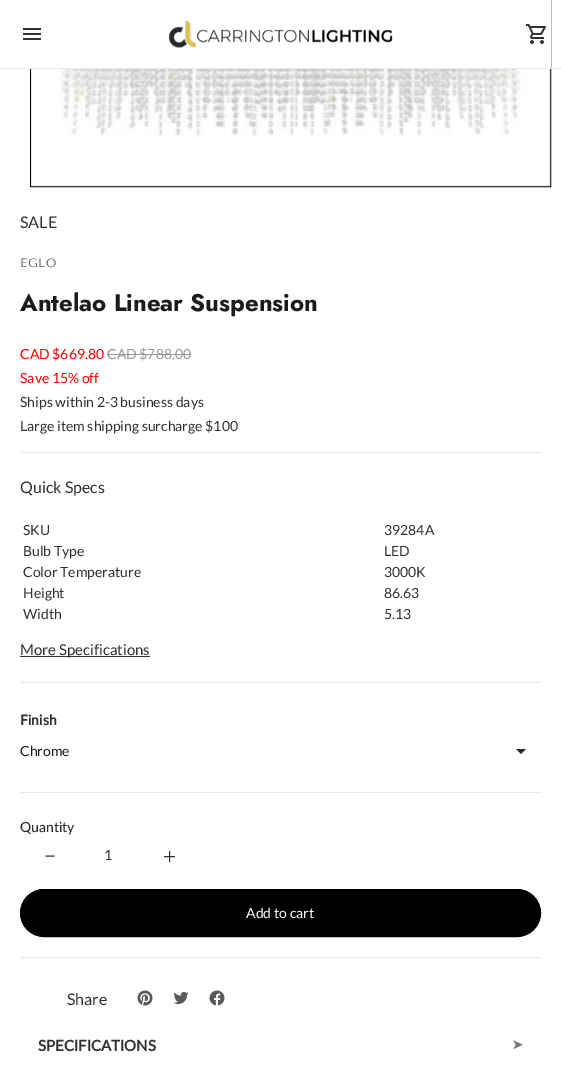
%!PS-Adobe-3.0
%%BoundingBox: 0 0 561 1066
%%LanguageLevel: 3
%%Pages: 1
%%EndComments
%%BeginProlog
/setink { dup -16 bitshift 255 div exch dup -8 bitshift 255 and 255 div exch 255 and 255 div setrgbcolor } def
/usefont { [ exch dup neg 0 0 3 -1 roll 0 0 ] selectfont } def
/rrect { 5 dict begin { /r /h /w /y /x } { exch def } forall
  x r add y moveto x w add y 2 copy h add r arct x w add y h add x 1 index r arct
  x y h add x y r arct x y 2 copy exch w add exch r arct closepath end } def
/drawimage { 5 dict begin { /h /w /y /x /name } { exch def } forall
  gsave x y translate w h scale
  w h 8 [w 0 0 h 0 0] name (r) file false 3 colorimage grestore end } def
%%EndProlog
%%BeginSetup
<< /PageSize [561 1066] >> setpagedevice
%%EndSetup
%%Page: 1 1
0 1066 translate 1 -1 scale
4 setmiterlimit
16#FFFFFF setink
0 0 561 1066 rectfill
16#000000 setink
30.5 -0.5 520 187 rectstroke
16#E9E9E9 setink
31.5 -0.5 518 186 rectstroke
16#FFFFFF setink
30 0 521 68 rectfill
16#EAEAEA setink
0 68 561 1 rectfill
(img1.raw) 23 28 18 12 drawimage
(img2.raw) 168 20 225 28 drawimage
(img3.raw) 526 24 20 20 drawimage
(img4.raw) 32 69 517 116 drawimage
/Lato-Regular 16 usefont
16#313131 setink
20 228 moveto (SALE) show
/TenorSans-Regular 12 usefont
16#5F5F5F setink
20 267 moveto 0.5 0 (EGLO) ashow
/Jost-Bold 24 usefont
16#1B1B1B setink
20 311 moveto (Antelao Linear Suspension) show
/Lato-Regular 14 usefont
16#FF0000 setink
20 359 moveto (CAD $669.80) show
16#989898 setink
107 359 moveto (CAD $788.00) show
107 354 84 1 rectfill
16#FF0000 setink
20 383 moveto (Save 15% off) show
16#313131 setink
20 407 moveto (Ships within 2-3 business days) show
20 431 moveto (Large item shipping surcharge $100) show
16#EAEAEA setink
20 452 521 1 rectfill
20 682 521 1 rectfill
/Lato-Regular 16 usefont
16#313131 setink
20 493 moveto (Quick Specs) show
/Lato-Regular 14 usefont
[
    [(SKU) 23 535]
    [(39284A) 384 535]
    [(Bulb Type) 23 556]
    [(LED) 384 556]
    [(Color Temperature) 23 577]
    [(3000K) 384 577]
    [(Height) 23 598]
    [(86.63) 384 598]
    [(Width) 23 619]
    [(5.13) 384 619]
] { aload pop moveto show } forall
20 656 130 1 rectfill
/Lato-Regular 15 usefont
20 655 moveto (More Specifications) show
/Lato-Bold 14 usefont
20 725 moveto (Finish) show
/Lato-Regular 14 usefont
16#1B1B1B setink
20 756 moveto (Chrome) show
16#292929 setink
516 749 moveto 521 754 lineto 526 749 lineto closepath fill
16#EAEAEA setink
20 792 521 1 rectfill
/Lato-Medium 14 usefont
16#313131 setink
20 832 moveto (Quantity) show
2 setlinecap
46 856 moveto 54 856 lineto stroke
/Lato-Regular 14 usefont
104 860 moveto (1) show
0 setlinecap
169.5 851 moveto 169.5 862 lineto 164 856.5 moveto 175 856.5 lineto stroke
16#000000 setink
20.5 889.5 520 47 23.5 rrect gsave fill grestore
stroke
16#FFFFFF setink
246 918 moveto (Add to cart) show
16#EAEAEA setink
20 957 521 1 rectfill
/Lato-Regular 16 usefont
16#313131 setink
67 1005 moveto (Share) show
(img5.raw) 137 990 16 16 drawimage
(img6.raw) 173 991 16 14 drawimage
(img7.raw) 209 990 16 16 drawimage
/Lato-Bold 15 usefont
38 1051 moveto (SPECIFICATIONS) show
/DejaVuSans-Bold 13 usefont
16#777777 setink
512 1049 moveto (➤) show
showpage
%%EOF
